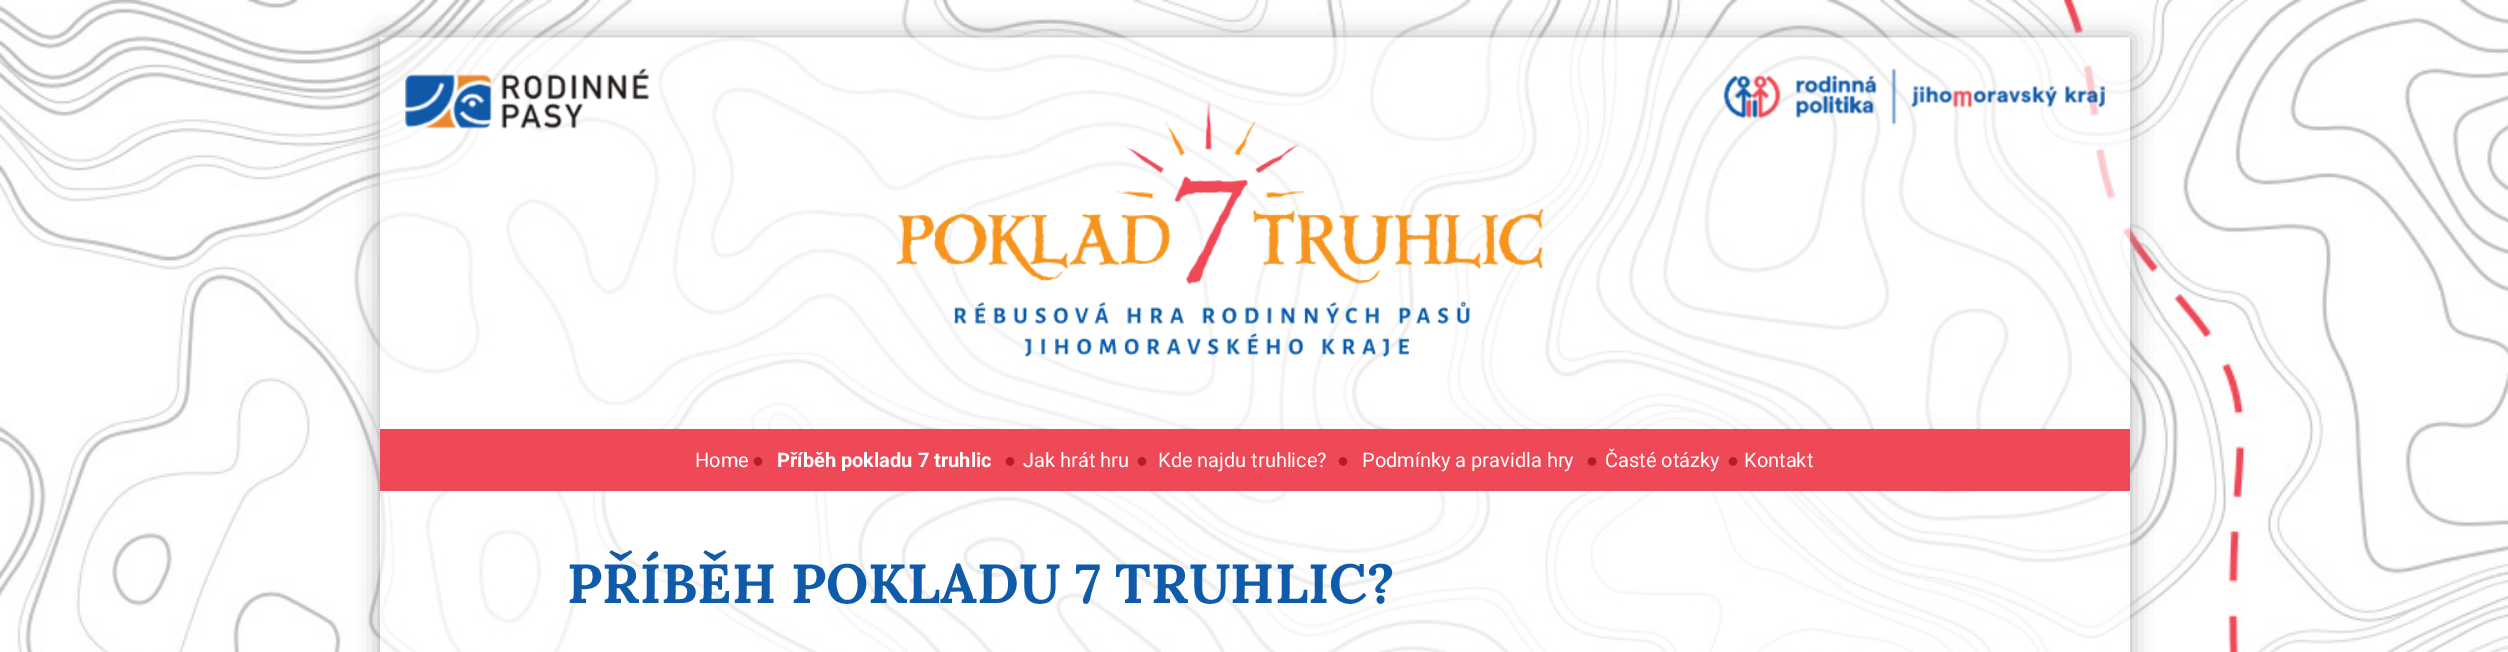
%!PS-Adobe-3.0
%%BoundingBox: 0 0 2508 652
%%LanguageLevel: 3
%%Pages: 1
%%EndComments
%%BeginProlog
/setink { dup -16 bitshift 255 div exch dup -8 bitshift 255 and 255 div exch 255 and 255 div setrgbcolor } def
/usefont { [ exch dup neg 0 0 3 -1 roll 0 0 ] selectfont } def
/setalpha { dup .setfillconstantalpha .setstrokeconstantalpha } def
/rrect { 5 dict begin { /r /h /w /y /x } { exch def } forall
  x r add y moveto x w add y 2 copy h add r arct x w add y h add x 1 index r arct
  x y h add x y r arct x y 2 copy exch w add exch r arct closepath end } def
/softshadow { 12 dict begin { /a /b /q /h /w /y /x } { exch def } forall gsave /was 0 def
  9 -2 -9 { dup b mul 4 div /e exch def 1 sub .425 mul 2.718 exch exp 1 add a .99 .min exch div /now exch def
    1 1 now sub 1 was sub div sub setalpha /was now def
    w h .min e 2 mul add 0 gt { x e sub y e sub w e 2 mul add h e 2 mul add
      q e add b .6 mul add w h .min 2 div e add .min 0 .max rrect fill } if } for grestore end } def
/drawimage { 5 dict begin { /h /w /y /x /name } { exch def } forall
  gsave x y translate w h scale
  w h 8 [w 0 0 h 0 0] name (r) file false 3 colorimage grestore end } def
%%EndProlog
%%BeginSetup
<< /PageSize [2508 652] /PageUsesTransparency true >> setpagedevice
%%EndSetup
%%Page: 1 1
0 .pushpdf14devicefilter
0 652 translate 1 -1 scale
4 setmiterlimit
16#FFFFFF setink
0 0 2508 652 rectfill
(img1.raw) 0 0 2508 652 drawimage
gsave
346 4 moveto 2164 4 lineto 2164 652 lineto 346 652 lineto closepath 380 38 moveto 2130 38 lineto 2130 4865 lineto 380 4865 lineto closepath eoclip newpath
16#AAAAAA setink
380 38 1750 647 0 11 1 softshadow
grestore
(img2.raw) 380 37 1750 392 drawimage
(img3.raw) 405 68 244 61 drawimage
(img4.raw) 896 101 648 257 drawimage
(img5.raw) 1723 68 382 57 drawimage
16#EF4857 setink
380 429 1750 62 rectfill
/Roboto-Regular 20 usefont
16#FFFFFF setink
695 467 moveto (Home) show
/LiberationSerif-Regular 20 usefont
16#B61B28 setink
752 467 moveto (●) show
/Roboto-Bold 20 usefont
16#FFFFFF setink
777 467 moveto (Příběh pokladu 7 truhlic) show
/LiberationSerif-Regular 20 usefont
16#B61B28 setink
1004 467 moveto (●) show
/Roboto-Regular 20 usefont
16#FFFFFF setink
1023 467 moveto (Jak hrát hru) show
/LiberationSerif-Regular 20 usefont
16#B61B28 setink
1136 467 moveto (●) show
/Roboto-Regular 20 usefont
16#FFFFFF setink
1158 467 moveto (Kde najdu truhlice?) show
/LiberationSerif-Regular 20 usefont
16#B61B28 setink
1337 467 moveto (●) show
/Roboto-Regular 20 usefont
16#FFFFFF setink
1362 467 moveto (Podmínky a pravidla hry) show
/LiberationSerif-Regular 20 usefont
16#B61B28 setink
1586 467 moveto (●) show
/Roboto-Regular 20 usefont
16#FFFFFF setink
1605 467 moveto (Časté otázky) show
/LiberationSerif-Regular 20 usefont
16#B61B28 setink
1727 467 moveto (●) show
/Roboto-Regular 20 usefont
16#FFFFFF setink
1744 467 moveto (Kontakt) show
0.7 setalpha
380 491 1750 161 rectfill
/Lora-Bold 55 usefont
1 setalpha
16#0F5BAA setink
567 603 moveto (PŘÍBĚH POKLADU 7 TRUHLIC?) show
.poppdf14devicefilter showpage
%%EOF
